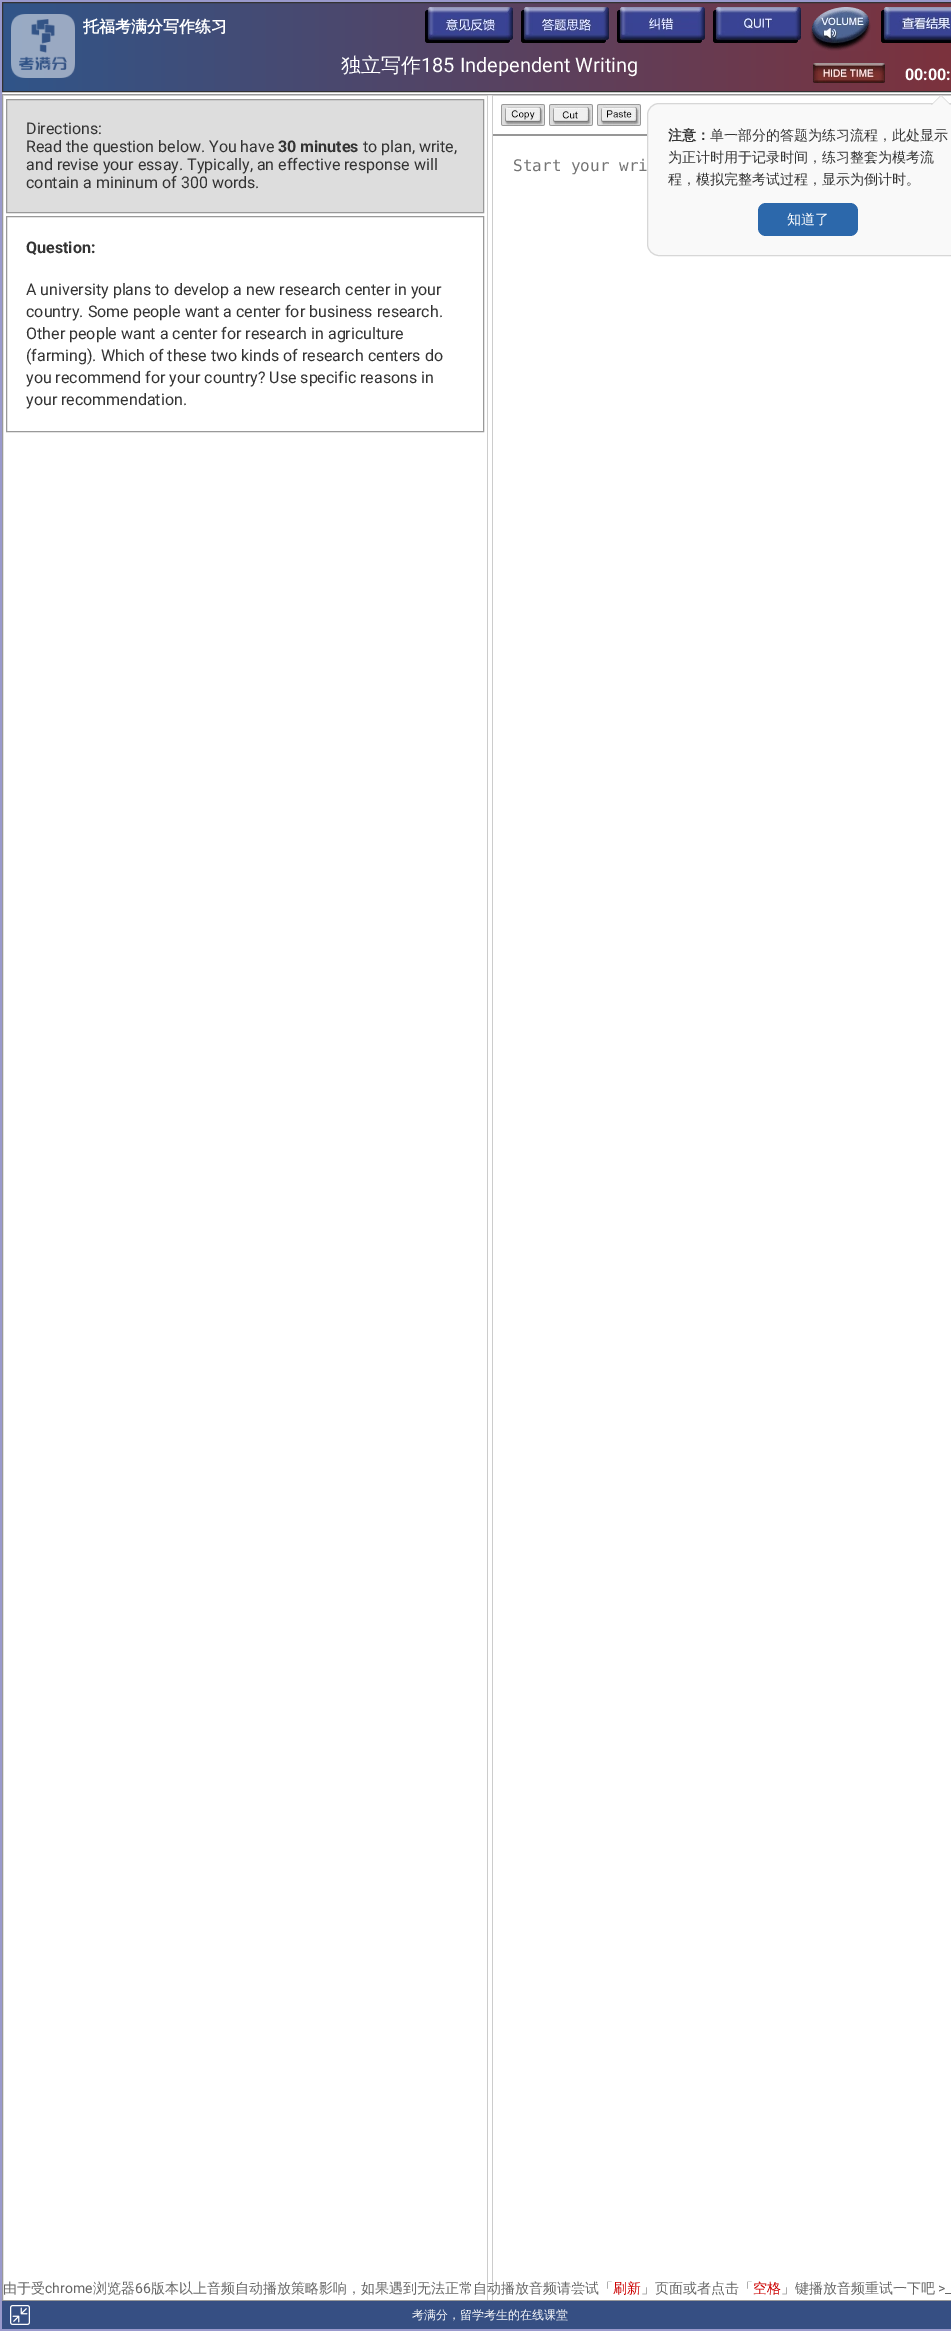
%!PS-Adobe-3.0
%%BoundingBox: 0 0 951 2331
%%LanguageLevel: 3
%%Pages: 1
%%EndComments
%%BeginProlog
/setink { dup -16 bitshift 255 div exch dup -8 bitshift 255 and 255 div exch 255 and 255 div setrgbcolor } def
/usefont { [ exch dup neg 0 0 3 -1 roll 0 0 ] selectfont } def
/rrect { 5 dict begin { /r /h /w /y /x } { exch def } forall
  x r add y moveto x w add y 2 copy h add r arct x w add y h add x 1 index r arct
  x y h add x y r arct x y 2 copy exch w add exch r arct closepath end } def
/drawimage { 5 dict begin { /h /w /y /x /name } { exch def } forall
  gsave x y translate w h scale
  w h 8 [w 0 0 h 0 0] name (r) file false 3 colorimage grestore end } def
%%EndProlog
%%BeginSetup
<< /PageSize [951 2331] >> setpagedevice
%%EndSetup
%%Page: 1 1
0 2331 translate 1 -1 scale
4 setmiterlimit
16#FFFFFF setink
0 0 951 2331 rectfill
16#9999CC setink
2 setlinewidth
1 1 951 2329 rectstroke
gsave 3 3 moveto 951 3 lineto 951 91 lineto 3 91 lineto closepath clip newpath
<< /ShadingType 2 /ColorSpace /DeviceRGB /Coords [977 47 3 47] /Extend [true true] /Function << /FunctionType 2 /Domain [0 1] /C0 [0.494 0.192 0.231] /C1 [0.188 0.333 0.537] /N 1 >> >> shfill grestore
16#333333 setink
1 setlinewidth
2.5 2.5 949 89 rectstroke
(img1.raw) 11 14 64 64 drawimage
/WenQuanYiZenHei-Bold 16 usefont
16#FFFFFF setink
83 32 moveto (托福考满分写作练习) show
/WenQuanYiZenHei-Medium 20 usefont
341 72 moveto (独立写作) show
/Roboto-Regular 20 usefont
421 72 moveto (185 Independent Writing) show
(img2.raw) 425 7 88 36 drawimage
(img3.raw) 521 7 88 36 drawimage
(img4.raw) 617 7 88 36 drawimage
(img5.raw) 713 7 88 36 drawimage
(img6.raw) 810 7 61 44 drawimage
(img7.raw) 881 7 70 36 drawimage
(img8.raw) 813 63 72 20 drawimage
/Roboto-Bold 16 usefont
905 80 moveto (00:00:) show
16#999999 setink
2.5 94.5 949 2206 rectstroke
16#F9F9F9 setink
647.5 103.5 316 152 11.5 rrect gsave fill grestore
16#D7D7D7 setink
stroke
16#CCCCCC setink
492 95 459 1 rectfill
16#D7D7D7 setink
951 105 moveto 931 105 lineto 941 95 lineto closepath fill
16#F9F9F9 setink
950 105 moveto 932 105 lineto 941 96 lineto closepath fill
/WenQuanYiZenHei-Bold 14 usefont
16#333333 setink
668 140 moveto (注意：) show
/WenQuanYiZenHei-Medium 14 usefont
[
    [(单一部分的答题为练习流程，此处显示) 710 140]
    [(为正计时用于记录时间，练习整套为模考流) 668 162]
    [(程，模拟完整考试过程，显示为倒计时。) 668 184]
] { aload pop moveto show } forall
16#2C68AB setink
758 203 100 33 8 rrect fill
16#FFFFFF setink
787 224 moveto (知道了) show
16#CCCCCC setink
3 95 485 1 rectfill
487 95 1 2205 rectfill
16#DDDDDD setink
6.5 99.5 moveto 483.5 99.5 lineto 483.5 212.5 lineto 6.5 212.5 lineto closepath gsave fill grestore
16#999999 setink
stroke
/Roboto-Regular 16 usefont
16#333333 setink
26 134 moveto (Directions:) show
26 152 moveto (Read the question below. You have) show
/Roboto-Bold 16 usefont
278 152 moveto (30 minutes) show
/Roboto-Regular 16 usefont
[
    [(to plan, write,) 363 152]
    [(and revise your essay. Typically, an effective response will) 26 170]
    [(contain a mininum of 300 words.) 26 188]
] { aload pop moveto show } forall
16#999999 setink
6.5 216.5 477 215 rectstroke
/Roboto-Bold 16 usefont
16#333333 setink
26 253 moveto (Question:) show
/Roboto-Regular 16 usefont
[
    [(A university plans to develop a new research center in your) 26 295]
    [(country. Some people want a center for business research.) 26 317]
    [(Other people want a center for research in agriculture) 26 339]
    [(\(farming\). Which of these two kinds of research centers do) 26 361]
    [(you recommend for your country? Use specific reasons in) 26 383]
    [(your recommendation.) 26 405]
] { aload pop moveto show } forall
16#CCCCCC setink
492 95 1 2205 rectfill
16#979797 setink
493 134 154 2 rectfill
(img9.raw) 501 104 44 22 drawimage
(img10.raw) 549 104 44 22 drawimage
(img11.raw) 597 104 44 22 drawimage
/DejaVuSansMono-Regular 16 usefont
16#757575 setink
513 171 moveto (Start your wri) show
/WenQuanYiZenHei-Medium 14 usefont
16#666666 setink
3 2293 moveto (由于受) show
/Roboto-Regular 14 usefont
45 2293 moveto (chrome) show
/WenQuanYiZenHei-Medium 14 usefont
93 2293 moveto (浏览器) show
/Roboto-Regular 14 usefont
135 2293 moveto (66) show
/WenQuanYiZenHei-Medium 14 usefont
151 2293 moveto (版本以上音频自动播放策略影响，如果遇到无法正常自动播放音频请尝试「) show
16#CC0000 setink
613 2293 moveto (刷新) show
16#666666 setink
641 2293 moveto (」页面或者点击「) show
16#CC0000 setink
753 2293 moveto (空格) show
16#666666 setink
781 2293 moveto (」键播放音频重试一下吧) show
/Roboto-Regular 14 usefont
938 2293 moveto (>_) show
16#364F83 setink
2 2301 949 28 rectfill
(img12.raw) 10 2305 20 20 drawimage
/WenQuanYiZenHei-Medium 12 usefont
16#FFFFFF setink
412 2319 moveto (考满分，留学考生的在线课堂) show
showpage
%%EOF
